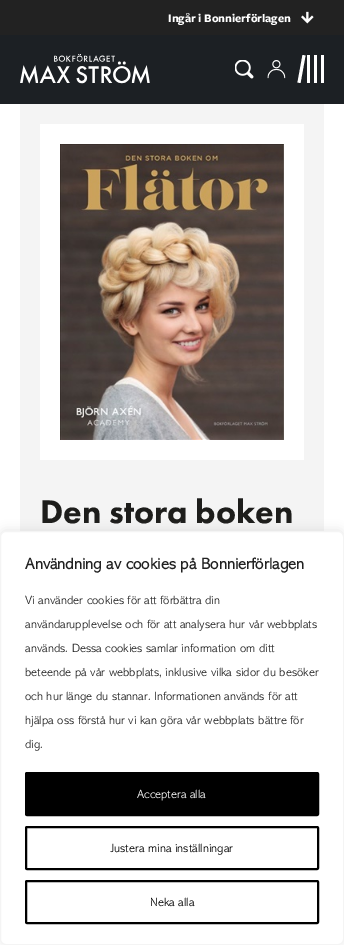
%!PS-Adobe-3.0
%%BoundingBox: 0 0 344 945
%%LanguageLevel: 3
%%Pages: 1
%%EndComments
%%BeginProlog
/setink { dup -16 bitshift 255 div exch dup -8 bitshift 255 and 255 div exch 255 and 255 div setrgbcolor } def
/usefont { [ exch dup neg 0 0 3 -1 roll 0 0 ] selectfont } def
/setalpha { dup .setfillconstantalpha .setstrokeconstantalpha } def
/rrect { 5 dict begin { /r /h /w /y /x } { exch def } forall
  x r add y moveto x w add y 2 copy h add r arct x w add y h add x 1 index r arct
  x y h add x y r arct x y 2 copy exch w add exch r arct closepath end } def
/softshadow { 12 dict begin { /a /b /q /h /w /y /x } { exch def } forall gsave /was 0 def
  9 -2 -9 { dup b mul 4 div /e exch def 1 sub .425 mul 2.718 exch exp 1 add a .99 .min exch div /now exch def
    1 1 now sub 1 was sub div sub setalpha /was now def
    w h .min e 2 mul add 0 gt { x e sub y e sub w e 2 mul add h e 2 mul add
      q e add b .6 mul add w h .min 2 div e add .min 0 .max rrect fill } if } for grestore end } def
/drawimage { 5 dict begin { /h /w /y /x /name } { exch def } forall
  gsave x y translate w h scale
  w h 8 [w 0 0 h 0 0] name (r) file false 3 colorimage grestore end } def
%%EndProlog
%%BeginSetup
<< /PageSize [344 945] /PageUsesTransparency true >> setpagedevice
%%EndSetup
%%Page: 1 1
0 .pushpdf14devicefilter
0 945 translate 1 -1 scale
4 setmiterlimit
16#FFFFFF setink
0 0 344 945 rectfill
16#222222 setink
0 0 344 35 rectfill
/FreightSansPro-Bold 12 usefont
16#FFFFFF setink
168 22 moveto (Ingår i Bonnierförlagen) show
(img1.raw) 301 11 13 13 drawimage
16#1C2024 setink
0 35 344 69 rectfill
(img2.raw) 20 54 130 30 drawimage
(img3.raw) 235 60 19 19 drawimage
(img4.raw) 267 60 19 19 drawimage
16#FFFFFF setink
302.5 55 moveto 305.5 55.5 lineto 300.5 83 lineto 297.5 82.5 lineto closepath fill
[
    [307 55 3 28 16#FFFFFF]
    [314 55 3 28 16#FFFFFF]
    [321 55 3 28 16#FFFFFF]
    [20 104 304 427 16#F4F4F4]
    [40 124 264 336 16#FFFFFF]
] { aload pop setink rectfill } forall
(img5.raw) 60 144 224 296 drawimage
/FuturaPT-Black 34 usefont
16#1D1D1B setink
40 523 moveto (Den stora boken) show
16#ACABAB setink
0 530 344 414 6 5 0.3 softshadow
16#FFFFFF setink
0.5 531.5 343 413 5.5 rrect gsave fill grestore
16#F4F4F4 setink
stroke
/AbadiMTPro-Bold 16 usefont
16#212121 setink
25 569 moveto (Användning av cookies på Bonnierförlagen) show
/AbadiMTPro-Light 12 usefont
[
    [(Vi använder cookies för att förbättra din) 25 604]
    [(användarupplevelse och för att analysera hur vår webbplats) 25 628]
    [(används. Dessa cookies samlar information om ditt) 25 652]
    [(beteende på vår webbplats, inklusive vilka sidor du besöker) 25 676]
    [(och hur länge du stannar. Informationen används för att) 25 700]
    [(hjälpa oss förstå hur vi kan göra vår webbplats bättre för) 25 724]
    [(dig.) 25 748]
] { aload pop moveto show } forall
16#000000 setink
26 773 292 42 1 rrect gsave fill grestore
2 setlinewidth
stroke
16#FFFFFF setink
137 798 moveto (Acceptera alla) show
16#000000 setink
26 827 292 42 1 rrect stroke
111 852 moveto (Justera mina inställningar) show
26 881 292 42 1 rrect stroke
150 906 moveto (Neka alla) show
.poppdf14devicefilter showpage
%%EOF
